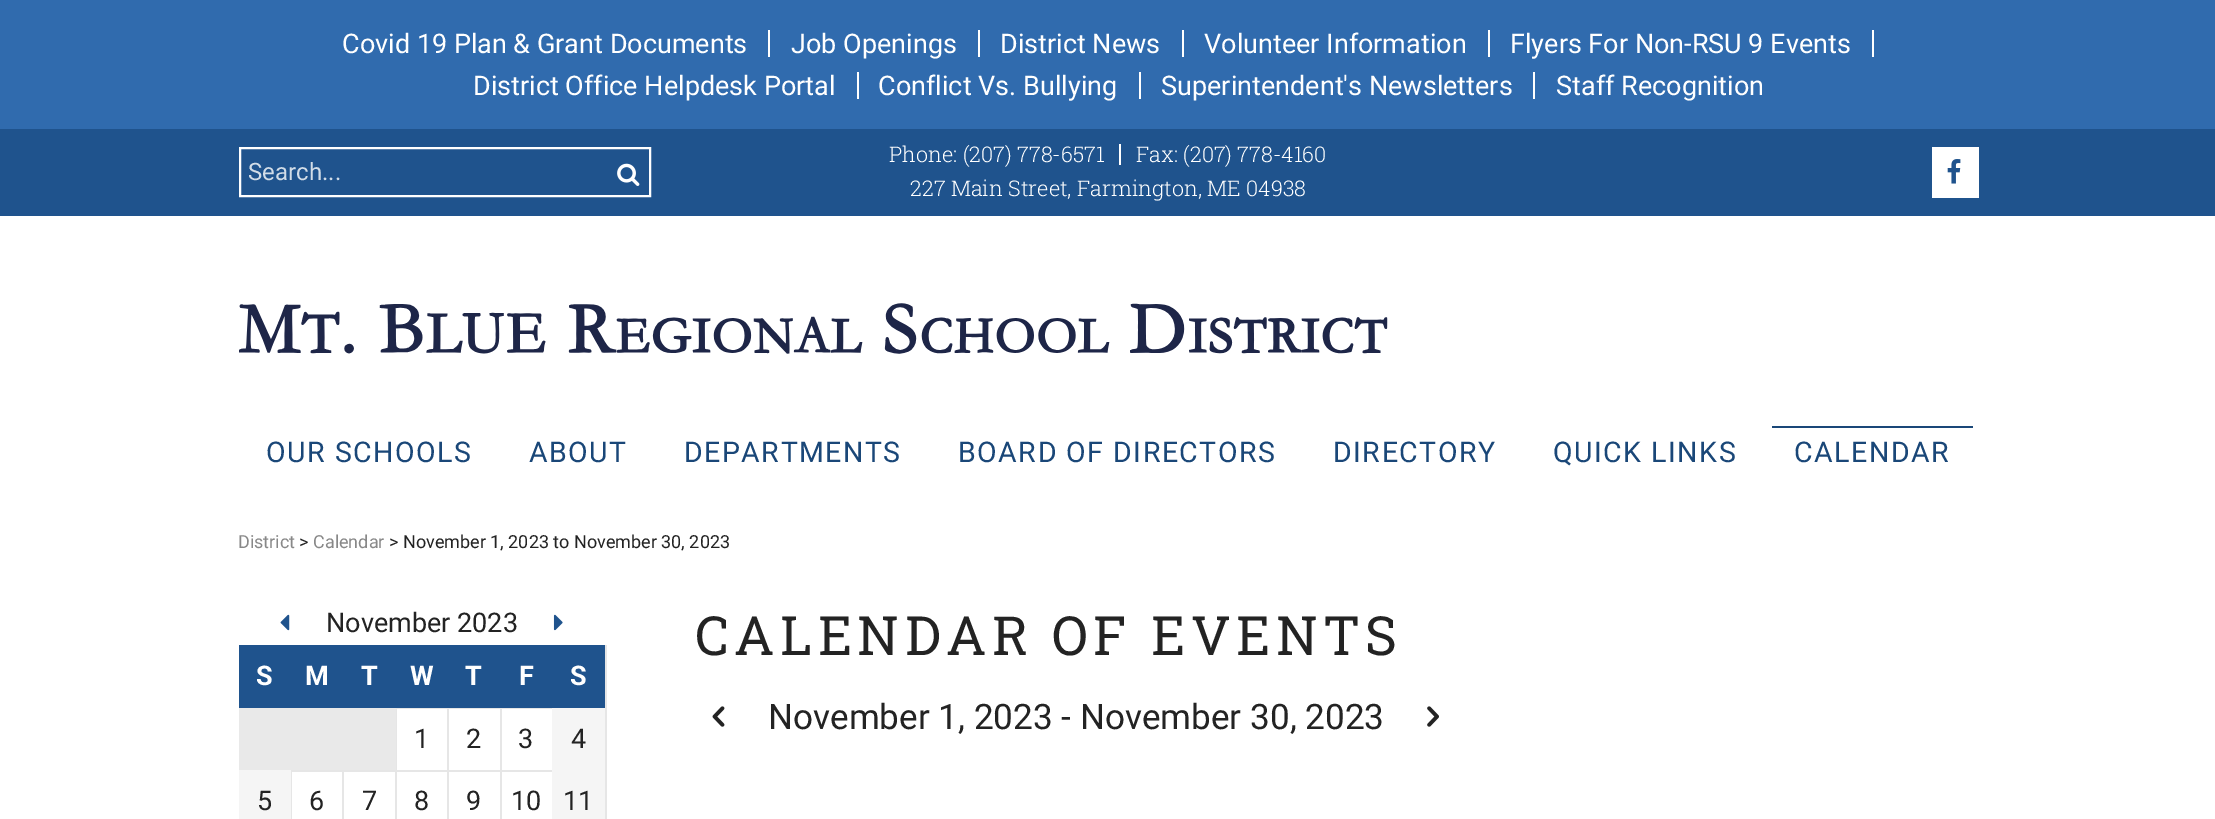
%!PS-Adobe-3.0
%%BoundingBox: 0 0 2215 819
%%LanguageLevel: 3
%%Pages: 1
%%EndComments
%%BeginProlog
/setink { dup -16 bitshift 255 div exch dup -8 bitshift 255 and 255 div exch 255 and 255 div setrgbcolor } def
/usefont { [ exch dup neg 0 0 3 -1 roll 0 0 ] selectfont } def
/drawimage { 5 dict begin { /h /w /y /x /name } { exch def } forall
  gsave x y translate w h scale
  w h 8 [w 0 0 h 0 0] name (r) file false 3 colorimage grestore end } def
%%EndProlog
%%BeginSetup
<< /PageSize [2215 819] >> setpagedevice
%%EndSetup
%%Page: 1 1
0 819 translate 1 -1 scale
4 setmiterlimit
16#FFFFFF setink
0 0 2215 819 rectfill
16#306BAE setink
0 0 2215 129 rectfill
16#FFFFFF setink
768 30 2 27 rectfill
/Roboto-Regular 27 usefont
342 53 moveto (Covid 19 Plan & Grant Documents) show
978 30 2 27 rectfill
791 53 moveto (Job Openings) show
1182 30 2 27 rectfill
1000 53 moveto (District News) show
1488 30 2 27 rectfill
1204 53 moveto (Volunteer Information) show
1872 30 2 27 rectfill
1510 53 moveto (Flyers For Non-RSU 9 Events) show
857 72 2 27 rectfill
473 95 moveto (District Office Helpdesk Portal) show
1139 72 2 27 rectfill
878 95 moveto (Conflict Vs. Bullying) show
1533 72 2 27 rectfill
1161 95 moveto (Superintendent's Newsletters) show
1556 95 moveto (Staff Recognition) show
16#1F538D setink
0 129 2215 87 rectfill
16#FFFFFF setink
2 setlinewidth
240 148 410 48 rectstroke
/Roboto-Regular 24 usefont
16#D2DDE8 setink
248 180 moveto (Search...) show
(img1.raw) 617 163 23 23 drawimage
/RobotoSlab-Light 21.6 usefont
16#FFFFFF setink
889 162 moveto (Phone: \(207\) 778-6571) show
1119 144 2 21 rectfill
1136 162 moveto (Fax: \(207\) 778-4160) show
910 196 moveto (227 Main Street, Farmington, ME 04938) show
1932 147 47 51 rectfill
(img2.raw) 1947 159 14 25 drawimage
(img3.raw) 239 303 1149 51 drawimage
/Roboto-Regular 28.5 usefont
16#1A4778 setink
266 462 moveto 1.5 0 (OUR SCHOOLS) ashow
529 462 moveto 1.5 0 (ABOUT) ashow
684 462 moveto 1.5 0 (DEPARTMENTS) ashow
958 462 moveto 1.5 0 (BOARD OF DIRECTORS) ashow
1333 462 moveto 1.5 0 (DIRECTORY) ashow
1553 462 moveto 1.5 0 (QUICK LINKS) ashow
1772 426 201 2 rectfill
1794 462 moveto 1.5 0 (CALENDAR) ashow
/Roboto-Regular 18 usefont
16#888888 setink
238 548 moveto (District) show
16#232323 setink
299 548 moveto (>) show
16#888888 setink
313 548 moveto (Calendar) show
16#232323 setink
389 548 moveto (> November 1, 2023 to November 30, 2023) show
(img4.raw) 280 614 10 17 drawimage
/Roboto-Regular 27 usefont
326 632 moveto (November 2023) show
(img5.raw) 553 614 10 17 drawimage
[
    [500 708 54 1 16#E6E6E6]
    [500 770 54 2 16#E6E6E6]
    [500 770 2 49 16#E6E6E6]
    [447 770 54 2 16#E6E6E6]
    [500 707 2 64 16#E6E6E6]
    [447 708 54 1 16#E6E6E6]
    [447 770 2 49 16#E6E6E6]
    [395 770 54 2 16#E6E6E6]
    [447 707 2 64 16#E6E6E6]
    [395 708 54 1 16#E6E6E6]
    [395 770 2 49 16#E6E6E6]
    [342 770 54 2 16#E6E6E6]
    [395 707 2 64 16#E6E6E6]
    [239 645 366 63 16#1F538D]
] { aload pop setink rectfill } forall
/Roboto-Bold 27 usefont
16#FFFFFF setink
[
    [(S) 256 685]
    [(M) 305 685]
    [(T) 361 685]
    [(W) 410 685]
    [(T) 465 685]
    [(F) 519 685]
    [(S) 570 685]
] { aload pop moveto show } forall
16#E9E9E9 setink
239 708 157 62 rectfill
/Roboto-Regular 27 usefont
16#232323 setink
[
    [(1) 414 748]
    [(2) 466 748]
    [(3) 518 748]
] { aload pop moveto show } forall
16#F5F5F5 setink
552 708 53 111 rectfill
16#232323 setink
571 748 moveto (4) show
[
    [342 770 2 49 16#E6E6E6]
    [290 770 54 2 16#E6E6E6]
    [239 770 52 49 16#F5F5F5]
] { aload pop setink rectfill } forall
16#232323 setink
257 810 moveto (5) show
16#E6E6E6 setink
291 770 1 49 rectfill
16#232323 setink
[
    [(6) 309 810]
    [(7) 362 810]
    [(8) 414 810]
    [(9) 466 810]
    [(10) 511 810]
] { aload pop moveto show } forall
16#E6E6E6 setink
605 645 2 174 rectfill
16#232323 setink
563 810 moveto (11) show
/RobotoSlab-Regular 54 usefont
695 655 moveto 5.4 0 (CALENDAR OF EVENTS) ashow
(img6.raw) 712 706 13 21 drawimage
/Roboto-Regular 35.1 usefont
768 729 moveto (November 1, 2023 - November 30, 2023) show
(img7.raw) 1427 706 12 21 drawimage
showpage
%%EOF
